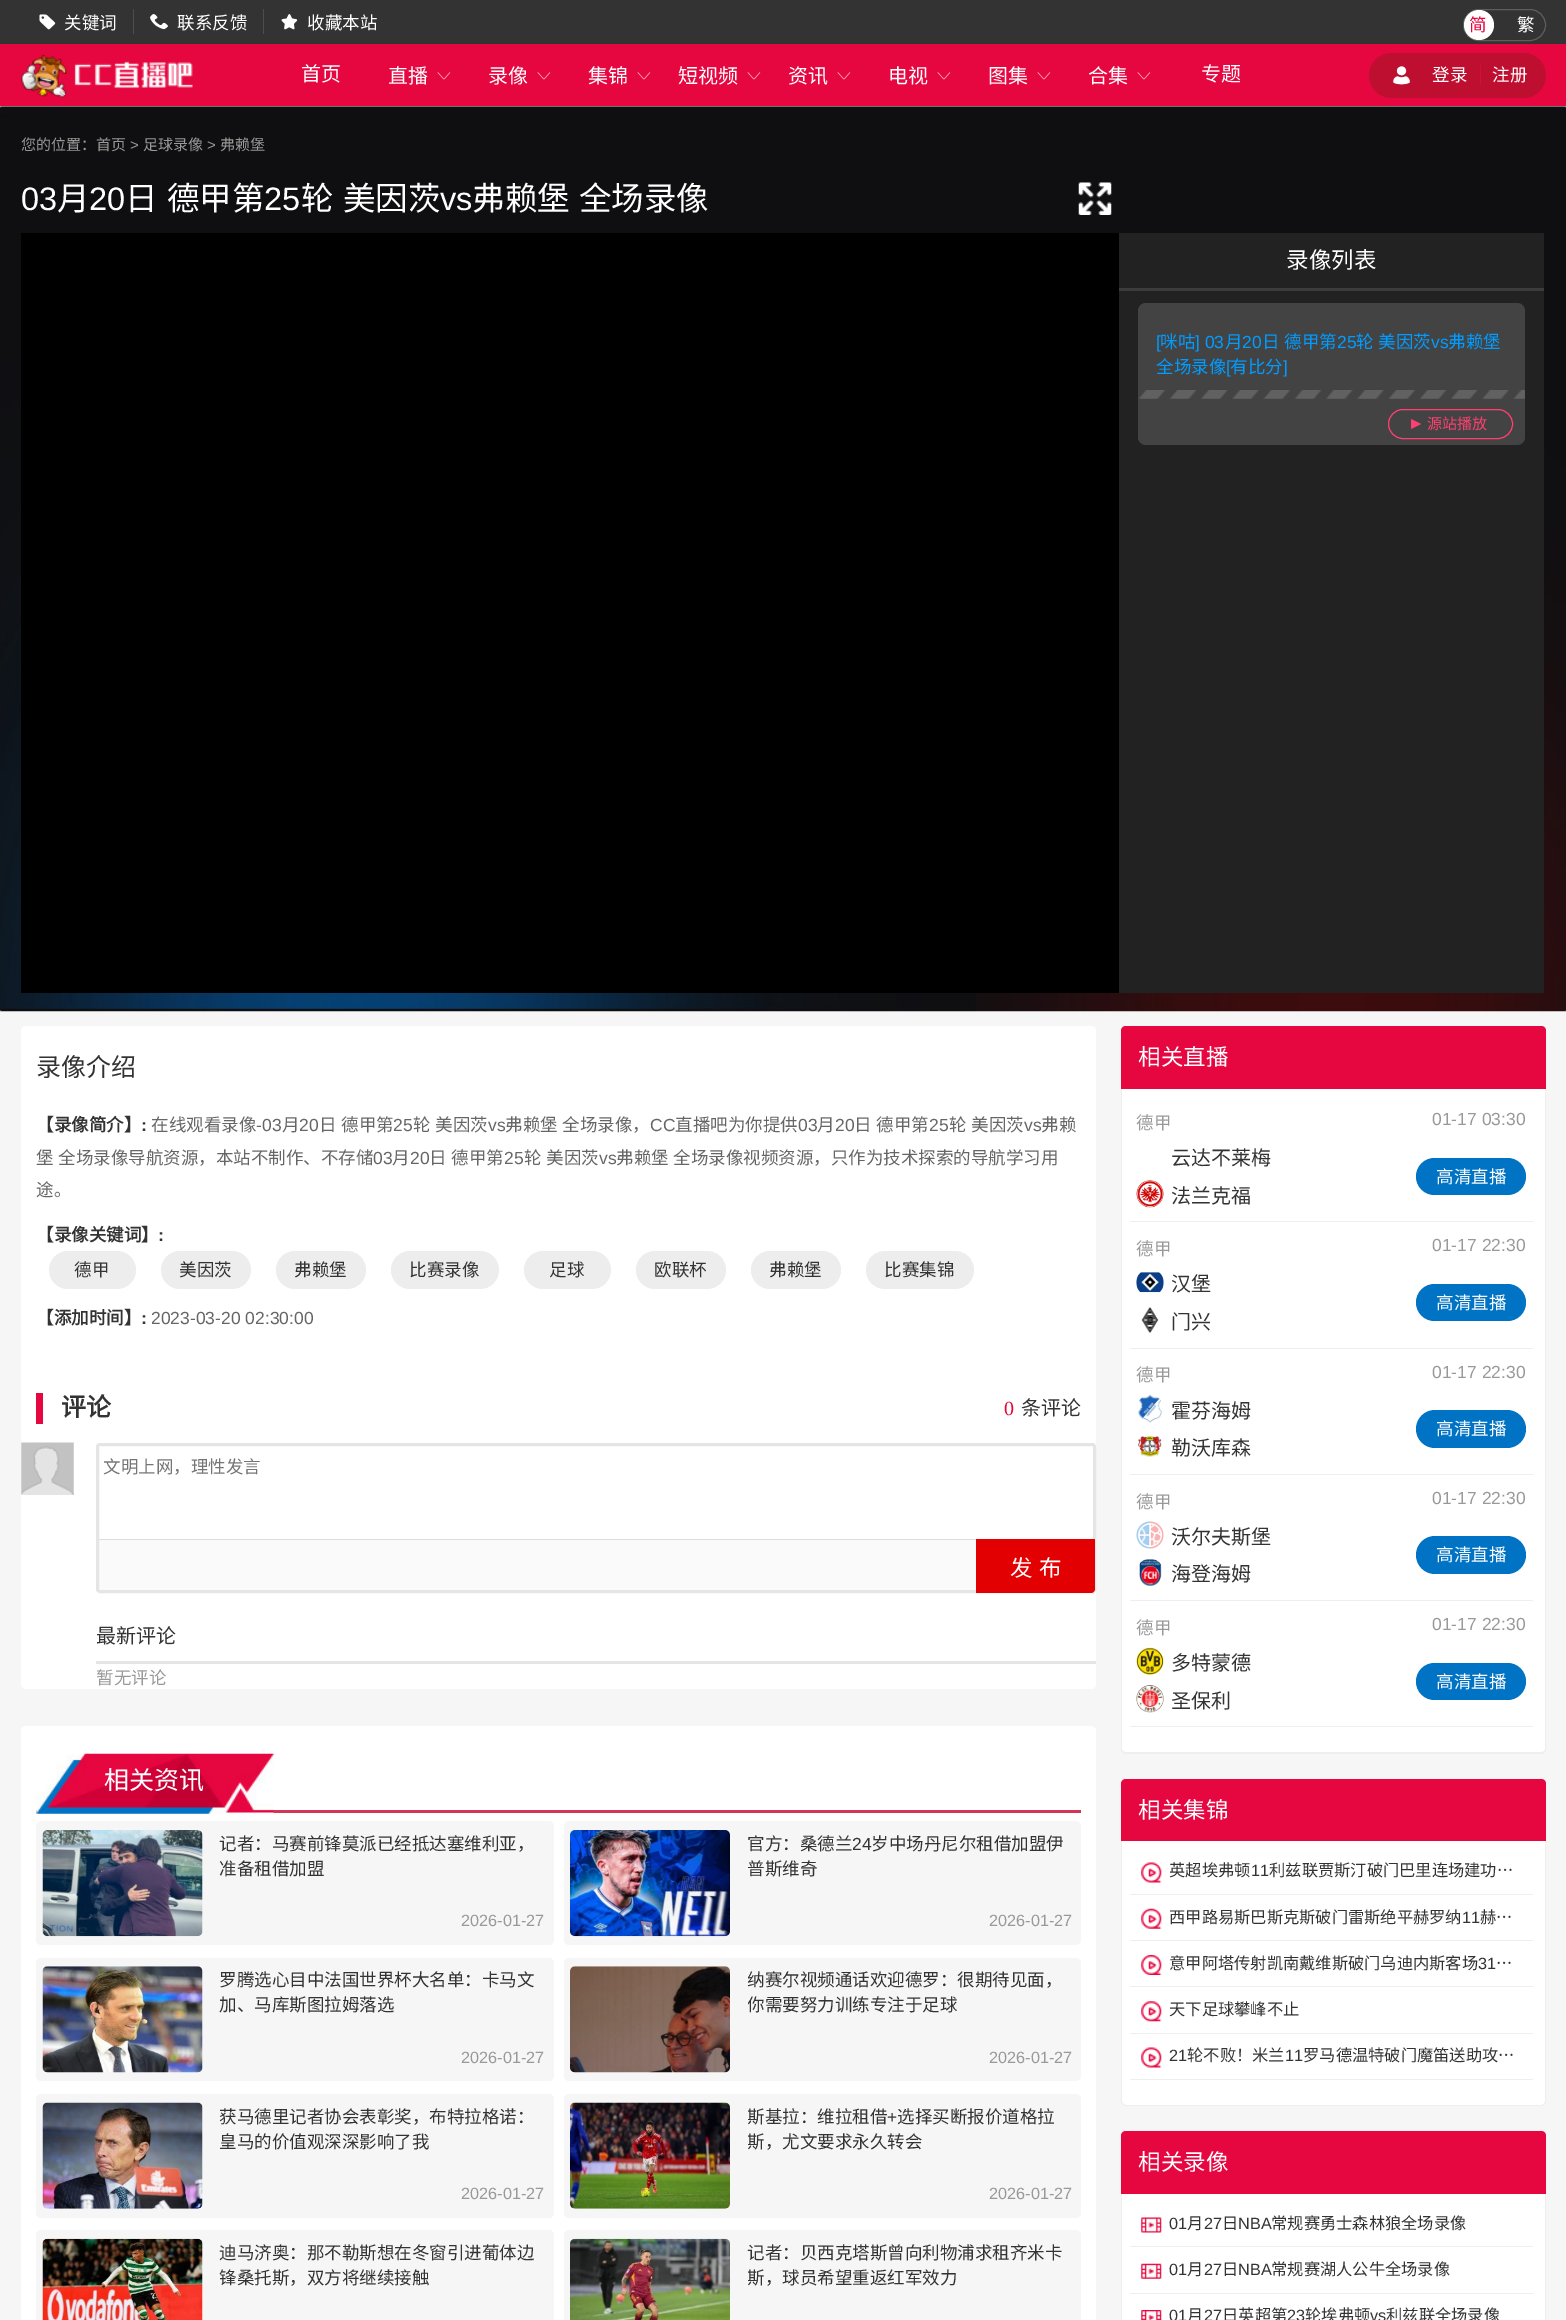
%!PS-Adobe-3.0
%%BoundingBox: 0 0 1566 2320
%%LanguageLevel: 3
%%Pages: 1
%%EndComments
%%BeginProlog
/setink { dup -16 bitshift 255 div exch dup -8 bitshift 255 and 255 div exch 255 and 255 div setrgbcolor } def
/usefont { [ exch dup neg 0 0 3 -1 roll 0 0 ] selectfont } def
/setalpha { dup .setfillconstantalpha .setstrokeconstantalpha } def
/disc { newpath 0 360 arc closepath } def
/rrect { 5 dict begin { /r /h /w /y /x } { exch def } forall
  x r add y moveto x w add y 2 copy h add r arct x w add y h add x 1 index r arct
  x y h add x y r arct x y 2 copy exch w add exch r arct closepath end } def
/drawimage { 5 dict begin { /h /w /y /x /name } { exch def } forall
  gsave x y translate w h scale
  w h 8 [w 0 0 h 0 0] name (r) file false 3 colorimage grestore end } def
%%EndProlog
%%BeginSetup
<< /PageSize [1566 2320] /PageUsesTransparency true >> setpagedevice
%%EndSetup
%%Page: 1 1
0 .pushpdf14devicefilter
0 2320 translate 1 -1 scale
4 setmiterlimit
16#F6F6F6 setink
0 0 1566 2320 rectfill
16#333333 setink
0 0 1566 44 rectfill
16#4D4D4D setink
133 9 1 25 rectfill
(img1.raw) 39 14 17 16 drawimage
/NotoSansCJKSC-Regular 17.5 usefont
16#FFFFFF setink
64 29 moveto (关键词) show
16#4D4D4D setink
263 9 1 25 rectfill
(img2.raw) 150 14 18 16 drawimage
16#FFFFFF setink
177 29 moveto (联系反馈) show
(img3.raw) 281 14 17 16 drawimage
307 29 moveto (收藏本站) show
16#5D5D5D setink
1463.5 9.5 82 31 15.5 rrect stroke
16#FFFFFF setink
1479 25 15 disc fill
16#E60640 setink
1469 31 moveto (简) show
16#FFFFFF setink
1517 31 moveto (繁) show
16#E60640 setink
0 44 1566 62 rectfill
(img4.raw) 21 54 172 44 drawimage
/NotoSansCJKSC-Regular 20 usefont
16#FFFFFF setink
301 81 moveto (首页) show
388 83 moveto (直播) show
(img5.raw) 437 72 14 8 drawimage
488 83 moveto (录像) show
(img5.raw) 537 72 14 8 drawimage
588 83 moveto (集锦) show
(img5.raw) 637 72 14 8 drawimage
678 83 moveto (短视频) show
(img5.raw) 747 72 14 8 drawimage
788 83 moveto (资讯) show
(img5.raw) 837 72 14 8 drawimage
888 83 moveto (电视) show
(img5.raw) 937 72 14 8 drawimage
988 83 moveto (图集) show
(img5.raw) 1037 72 14 8 drawimage
1088 83 moveto (合集) show
(img5.raw) 1137 72 14 8 drawimage
1201 81 moveto (专题) show
16#BF0F30 setink
1369 53 177 45 22.5 rrect fill
(img6.raw) 1393 66 17 19 drawimage
/NotoSansCJKSC-Regular 17.5 usefont
16#FFFFFF setink
1432 81 moveto (登录) show
16#D41135 setink
1480 65 1 20 rectfill
16#FFFFFF setink
1492 81 moveto (注册) show
(img7.raw) 0 106 1566 906 drawimage
/NotoSansCJKSC-Regular 15 usefont
16#999999 setink
21 150 moveto (您的位置：首页) show
/LiberationSans-Regular 15 usefont
130 150 moveto (>) show
/NotoSansCJKSC-Regular 15 usefont
143 150 moveto (足球录像) show
/LiberationSans-Regular 15 usefont
207 150 moveto (>) show
/NotoSansCJKSC-Regular 15 usefont
220 150 moveto (弗赖堡) show
/LiberationSans-Regular 32.5 usefont
16#FFFFFF setink
21 210 moveto (03) show
/NotoSansCJKSC-Regular 32.5 usefont
57 210 moveto (月) show
/LiberationSans-Regular 32.5 usefont
89 210 moveto (20) show
/NotoSansCJKSC-Regular 32.5 usefont
125 210 moveto 2 0 32 (日 德甲第) widthshow
/LiberationSans-Regular 32.5 usefont
264 210 moveto (25) show
/NotoSansCJKSC-Regular 32.5 usefont
301 210 moveto 2 0 32 (轮 美因茨) widthshow
/LiberationSans-Regular 32.5 usefont
440 210 moveto (vs) show
/NotoSansCJKSC-Regular 32.5 usefont
472 210 moveto 2 0 32 (弗赖堡 全场录像) widthshow
16#000000 setink
21 233 1098 760 rectfill
(img8.raw) 1078 182 34 33 drawimage
16#232222 setink
1119 233 425 760 rectfill
16#3C3C3C setink
1119 288 425 3 rectfill
/NotoSansCJKSC-Regular 22.5 usefont
16#FFFFFF setink
1286 268 moveto (录像列表) show
16#434343 setink
1138 303 387 142 8 rrect fill
/LiberationSans-Regular 17.5 usefont
16#009CFF setink
1156 348 moveto ([) show
/NotoSansCJKSC-Regular 17.5 usefont
1160 348 moveto (咪咕) show
/LiberationSans-Regular 17.5 usefont
1195 348 moveto (] 03) show
/NotoSansCJKSC-Regular 17.5 usefont
1225 348 moveto (月) show
/LiberationSans-Regular 17.5 usefont
1242 348 moveto (20) show
/NotoSansCJKSC-Regular 17.5 usefont
1262 348 moveto (日) show
1284 348 moveto (德甲第) show
/LiberationSans-Regular 17.5 usefont
1337 348 moveto (25) show
/NotoSansCJKSC-Regular 17.5 usefont
1356 348 moveto (轮) show
1378 348 moveto (美因茨) show
/LiberationSans-Regular 17.5 usefont
1431 348 moveto (vs) show
/NotoSansCJKSC-Regular 17.5 usefont
1448 348 moveto (弗赖堡) show
1156 373 moveto (全场录像) show
/LiberationSans-Regular 17.5 usefont
1226 373 moveto ([) show
/NotoSansCJKSC-Regular 17.5 usefont
1230 373 moveto (有比分) show
/LiberationSans-Regular 17.5 usefont
1283 373 moveto (]) show
(img9.raw) 1138 390 387 9 drawimage
16#FF3F71 setink
1388.5 409.5 124 29 14.5 rrect stroke
1411 429 moveto 1411 419 lineto 1421 424 lineto closepath fill
/NotoSansCJKSC-Regular 15 usefont
1427 429 moveto (源站播放) show
16#FFFFFF setink
21 1026 1075 663 5 rrect fill
/NotoSansCJKSC-Regular 25 usefont
16#333333 setink
36 1076 moveto (录像介绍) show
/NotoSansCJKSC-Bold 17.5 usefont
36 1131 moveto (【录像简介】) show
/LiberationSans-Bold 17.5 usefont
141 1131 moveto (:) show
/NotoSansCJKSC-Regular 17.5 usefont
16#666666 setink
151 1131 moveto (在线观看录像) show
/LiberationSans-Regular 17.5 usefont
256 1131 moveto (-03) show
/NotoSansCJKSC-Regular 17.5 usefont
282 1131 moveto (月) show
/LiberationSans-Regular 17.5 usefont
299 1131 moveto (20) show
/NotoSansCJKSC-Regular 17.5 usefont
319 1131 moveto 1 0 32 (日 德甲第) widthshow
/LiberationSans-Regular 17.5 usefont
393 1131 moveto (25) show
/NotoSansCJKSC-Regular 17.5 usefont
413 1131 moveto 1 0 32 (轮 美因茨) widthshow
/LiberationSans-Regular 17.5 usefont
488 1131 moveto (vs) show
/NotoSansCJKSC-Regular 17.5 usefont
505 1131 moveto 1 0 32 (弗赖堡 全场录像，) widthshow
/LiberationSans-Regular 17.5 usefont
650 1131 moveto (CC) show
/NotoSansCJKSC-Regular 17.5 usefont
675 1131 moveto (直播吧为你提供) show
/LiberationSans-Regular 17.5 usefont
798 1131 moveto (03) show
/NotoSansCJKSC-Regular 17.5 usefont
817 1131 moveto (月) show
/LiberationSans-Regular 17.5 usefont
835 1131 moveto (20) show
/NotoSansCJKSC-Regular 17.5 usefont
854 1131 moveto 1 0 32 (日 德甲第) widthshow
/LiberationSans-Regular 17.5 usefont
929 1131 moveto (25) show
/NotoSansCJKSC-Regular 17.5 usefont
949 1131 moveto 1 0 32 (轮 美因茨) widthshow
/LiberationSans-Regular 17.5 usefont
1024 1131 moveto (vs) show
/NotoSansCJKSC-Regular 17.5 usefont
1041 1131 moveto (弗赖) show
36 1164 moveto 1 0 32 (堡 全场录像导航资源，本站不制作、不存储) widthshow
/LiberationSans-Regular 17.5 usefont
373 1164 moveto (03) show
/NotoSansCJKSC-Regular 17.5 usefont
392 1164 moveto (月) show
/LiberationSans-Regular 17.5 usefont
410 1164 moveto (20) show
/NotoSansCJKSC-Regular 17.5 usefont
429 1164 moveto 1 0 32 (日 德甲第) widthshow
/LiberationSans-Regular 17.5 usefont
504 1164 moveto (25) show
/NotoSansCJKSC-Regular 17.5 usefont
524 1164 moveto 1 0 32 (轮 美因茨) widthshow
/LiberationSans-Regular 17.5 usefont
599 1164 moveto (vs) show
/NotoSansCJKSC-Regular 17.5 usefont
616 1164 moveto 1 0 32 (弗赖堡 全场录像视频资源，只作为技术探索的导航学习用) widthshow
36 1196 moveto (途。) show
/NotoSansCJKSC-Bold 17.5 usefont
16#333333 setink
36 1241 moveto (【录像关键词】) show
/LiberationSans-Bold 17.5 usefont
158 1241 moveto (:) show
16#EDEDED setink
49 1251 87 38 19 rrect fill
/NotoSansCJKSC-Regular 17.5 usefont
16#333333 setink
74 1276 moveto (德甲) show
16#EDEDED setink
161 1251 90 38 19 rrect fill
16#333333 setink
179 1276 moveto (美因茨) show
16#EDEDED setink
276 1251 90 38 19 rrect fill
16#333333 setink
294 1276 moveto (弗赖堡) show
16#EDEDED setink
391 1251 108 38 19 rrect fill
16#333333 setink
409 1276 moveto (比赛录像) show
16#EDEDED setink
524 1251 87 38 19 rrect fill
16#333333 setink
549 1276 moveto (足球) show
16#EDEDED setink
636 1251 90 38 19 rrect fill
16#333333 setink
654 1276 moveto (欧联杯) show
16#EDEDED setink
751 1251 90 38 19 rrect fill
16#333333 setink
769 1276 moveto (弗赖堡) show
16#EDEDED setink
866 1251 108 38 19 rrect fill
16#333333 setink
884 1276 moveto (比赛集锦) show
/NotoSansCJKSC-Bold 17.5 usefont
36 1324 moveto (【添加时间】) show
/LiberationSans-Bold 17.5 usefont
141 1324 moveto (:) show
/LiberationSans-Regular 17.5 usefont
16#666666 setink
151 1324 moveto (2023-03-20 02:30:00) show
16#E60640 setink
36 1393 7 31 rectfill
/NotoSansCJKSC-Bold 25 usefont
16#333333 setink
61 1416 moveto (评论) show
/LiberationSerif-Regular 20 usefont
16#E60640 setink
1004 1415 moveto (0) show
/NotoSansCJKSC-Regular 20 usefont
16#333333 setink
1021 1415 moveto (条评论) show
(img10.raw) 21 1442 53 53 drawimage
16#E5E5E5 setink
3 setlinewidth
97.5 1444.5 997 147 2.5 rrect stroke
/NotoSansCJKSC-Regular 17.5 usefont
16#757575 setink
103 1473 moveto (文明上网，理性发言) show
0.44 setalpha
[
    [99 1540 877 50 16#F3F3F3]
] { aload pop setink rectfill } forall
1 setalpha
[
    [99 1539 877 1 16#DDDDDD]
    [1093 1591 1 3 16#DDDDDD]
] { aload pop setink rectfill } forall
16#E30002 setink
976 1539 moveto 1095 1539 lineto 1095 1589 lineto 1095 1591 1093 1593 1091 1593 curveto 976 1593 lineto closepath fill
/NotoSansCJKSC-Regular 22.5 usefont
16#FFFFFF setink
1010 1576 moveto 1 0 32 (发 布) widthshow
16#E5E5E5 setink
96 1661 1000 3 rectfill
/NotoSansCJKSC-Regular 20 usefont
16#333333 setink
96 1643 moveto (最新评论) show
/NotoSansCJKSC-Regular 17.5 usefont
16#999999 setink
96 1684 moveto (暂无评论) show
16#FFFFFF setink
21 1726 1075 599 5 rrect fill
16#D33556 setink
36 1810 1045 3 rectfill
(img11.raw) 36 1753 238 61 drawimage
/NotoSansCJKSC-Regular 25 usefont
16#FFFFFF setink
104 1789 moveto (相关资讯) show
16#F6F6F6 setink
36 1821 518 124 5 rrect fill
(img12.raw) 42 1830 161 107 drawimage
/NotoSansCJKSC-Regular 17.5 usefont
16#333333 setink
219 1850 moveto (记者：马赛前锋莫派已经抵达塞维利亚，) show
219 1875 moveto (准备租借加盟) show
/LiberationSans-Regular 16.25 usefont
16#999999 setink
461 1926 moveto (2026-01-27) show
16#F6F6F6 setink
564 1821 517 124 5 rrect fill
(img13.raw) 570 1830 160 107 drawimage
/NotoSansCJKSC-Regular 17.5 usefont
16#333333 setink
747 1850 moveto (官方：桑德兰) show
/LiberationSans-Regular 17.5 usefont
852 1850 moveto (24) show
/NotoSansCJKSC-Regular 17.5 usefont
871 1850 moveto (岁中场丹尼尔租借加盟伊) show
747 1875 moveto (普斯维奇) show
/LiberationSans-Regular 16.25 usefont
16#999999 setink
989 1926 moveto (2026-01-27) show
16#F6F6F6 setink
36 1958 518 123 5 rrect fill
(img14.raw) 42 1966 161 107 drawimage
/NotoSansCJKSC-Regular 17.5 usefont
16#333333 setink
219 1986 moveto (罗腾选心目中法国世界杯大名单：卡马文) show
219 2011 moveto (加、马库斯图拉姆落选) show
/LiberationSans-Regular 16.25 usefont
16#999999 setink
461 2063 moveto (2026-01-27) show
16#F6F6F6 setink
564 1958 517 123 5 rrect fill
(img15.raw) 570 1966 160 107 drawimage
gsave
748 1966 325 50 rectclip
/NotoSansCJKSC-Regular 17.5 usefont
16#333333 setink
747 1986 moveto (纳赛尔视频通话欢迎德罗：很期待见面，) show
747 2011 moveto (你需要努力训练专注于足球) show
grestore
16#999999 setink
989 2063 moveto (2026-01-27) show
16#F6F6F6 setink
36 2094 518 124 5 rrect fill
(img16.raw) 42 2102 161 107 drawimage
/NotoSansCJKSC-Regular 17.5 usefont
16#333333 setink
219 2123 moveto (获马德里记者协会表彰奖，布特拉格诺：) show
219 2148 moveto (皇马的价值观深深影响了我) show
/LiberationSans-Regular 16.25 usefont
16#999999 setink
461 2199 moveto (2026-01-27) show
16#F6F6F6 setink
564 2094 517 124 5 rrect fill
(img17.raw) 570 2102 160 107 drawimage
gsave
748 2103 325 50 rectclip
/NotoSansCJKSC-Regular 17.5 usefont
16#333333 setink
747 2123 moveto (斯基拉：维拉租借) show
grestore
/LiberationSans-Regular 17.5 usefont
16#333333 setink
887 2123 moveto (+) show
/NotoSansCJKSC-Regular 17.5 usefont
897 2123 moveto (选择买断报价道格拉) show
gsave
748 2103 325 50 rectclip
747 2148 moveto (斯，尤文要求永久转会) show
grestore
/LiberationSans-Regular 16.25 usefont
16#999999 setink
989 2199 moveto (2026-01-27) show
16#F6F6F6 setink
36 2230 518 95 5 rrect fill
(img18.raw) 42 2238 161 82 drawimage
/NotoSansCJKSC-Regular 17.5 usefont
16#333333 setink
219 2259 moveto (迪马济奥：那不勒斯想在冬窗引进葡体边) show
219 2284 moveto (锋桑托斯，双方将继续接触) show
16#F6F6F6 setink
564 2230 517 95 5 rrect fill
(img19.raw) 570 2238 160 82 drawimage
16#333333 setink
747 2259 moveto (记者：贝西克塔斯曾向利物浦求租齐米卡) show
gsave
748 2239 325 50 rectclip
747 2284 moveto (斯，球员希望重返红军效力) show
grestore
16#E60640 setink
1126 1026 moveto 1541 1026 lineto 1544 1026 1546 1028 1546 1031 curveto 1546 1089 lineto 1121 1089 lineto 1121 1031 lineto 1121 1028 1123 1026 1126 1026 curveto closepath fill
/NotoSansCJKSC-Regular 22.5 usefont
16#FFFFFF setink
1138 1065 moveto (相关直播) show
1121 1089 moveto 1546 1089 lineto 1546 1749 lineto 1546 1752 1544 1754 1541 1754 curveto 1126 1754 lineto 1123 1754 1121 1752 1121 1749 curveto closepath fill
16#EEEEEE setink
1121 1089 moveto 1546 1089 lineto 1546 1749 lineto 1546 1752 1544 1754 1541 1754 curveto 1126 1754 lineto 1123 1754 1121 1752 1121 1749 curveto closepath 1122 1089 moveto 1545 1089 lineto 1545 1749 lineto 1545 1751 1543 1752 1541 1752 curveto 1126 1752 lineto 1124 1752 1122 1751 1122 1749 curveto closepath eofill
1130 1221 403 1 rectfill
/NotoSansCJKSC-Regular 17.5 usefont
16#999999 setink
1136 1129 moveto (德甲) show
/LiberationSans-Regular 17.5 usefont
1432 1125 moveto (01-17 03:30) show
/NotoSansCJKSC-Regular 20 usefont
16#333333 setink
1171 1165 moveto (云达不莱梅) show
(img20.raw) 1136 1180 28 28 drawimage
1171 1203 moveto (法兰克福) show
16#0073C4 setink
1416 1158 110 37 18.5 rrect fill
/NotoSansCJKSC-Regular 17.5 usefont
16#FFFFFF setink
1436 1183 moveto (高清直播) show
16#EEEEEE setink
1130 1348 403 1 rectfill
16#999999 setink
1136 1255 moveto (德甲) show
/LiberationSans-Regular 17.5 usefont
1432 1251 moveto (01-17 22:30) show
(img21.raw) 1136 1272 28 21 drawimage
/NotoSansCJKSC-Regular 20 usefont
16#333333 setink
1171 1291 moveto (汉堡) show
(img22.raw) 1141 1307 18 26 drawimage
1171 1329 moveto (门兴) show
16#0073C4 setink
1416 1284 110 37 18.5 rrect fill
/NotoSansCJKSC-Regular 17.5 usefont
16#FFFFFF setink
1436 1309 moveto (高清直播) show
16#EEEEEE setink
1130 1474 403 1 rectfill
16#999999 setink
1136 1381 moveto (德甲) show
/LiberationSans-Regular 17.5 usefont
1432 1378 moveto (01-17 22:30) show
(img23.raw) 1138 1395 24 28 drawimage
/NotoSansCJKSC-Regular 20 usefont
16#333333 setink
1171 1418 moveto (霍芬海姆) show
(img24.raw) 1138 1436 24 21 drawimage
1171 1455 moveto (勒沃库森) show
16#0073C4 setink
1416 1410 110 38 19 rrect fill
/NotoSansCJKSC-Regular 17.5 usefont
16#FFFFFF setink
1436 1435 moveto (高清直播) show
16#EEEEEE setink
1130 1600 403 1 rectfill
16#999999 setink
1136 1508 moveto (德甲) show
/LiberationSans-Regular 17.5 usefont
1432 1504 moveto (01-17 22:30) show
(img25.raw) 1136 1521 28 28 drawimage
/NotoSansCJKSC-Regular 20 usefont
16#333333 setink
1171 1544 moveto (沃尔夫斯堡) show
(img26.raw) 1139 1559 23 27 drawimage
1171 1581 moveto (海登海姆) show
16#0073C4 setink
1416 1536 110 38 19 rrect fill
/NotoSansCJKSC-Regular 17.5 usefont
16#FFFFFF setink
1436 1561 moveto (高清直播) show
16#EEEEEE setink
1130 1726 403 1 rectfill
16#999999 setink
1136 1634 moveto (德甲) show
/LiberationSans-Regular 17.5 usefont
1432 1630 moveto (01-17 22:30) show
(img27.raw) 1136 1647 28 28 drawimage
/NotoSansCJKSC-Regular 20 usefont
16#333333 setink
1171 1670 moveto (多特蒙德) show
(img28.raw) 1136 1685 28 28 drawimage
1171 1708 moveto (圣保利) show
16#0073C4 setink
1416 1663 110 37 18.5 rrect fill
/NotoSansCJKSC-Regular 17.5 usefont
16#FFFFFF setink
1436 1688 moveto (高清直播) show
16#E60640 setink
1126 1779 moveto 1541 1779 lineto 1544 1779 1546 1781 1546 1784 curveto 1546 1841 lineto 1121 1841 lineto 1121 1784 lineto 1121 1781 1123 1779 1126 1779 curveto closepath fill
/NotoSansCJKSC-Regular 22.5 usefont
16#FFFFFF setink
1138 1818 moveto (相关集锦) show
1121 1841 moveto 1546 1841 lineto 1546 2101 lineto 1546 2104 1544 2106 1541 2106 curveto 1126 2106 lineto 1123 2106 1121 2104 1121 2101 curveto closepath fill
16#EEEEEE setink
1121 1841 moveto 1546 1841 lineto 1546 2101 lineto 1546 2104 1544 2106 1541 2106 curveto 1126 2106 lineto 1123 2106 1121 2104 1121 2101 curveto closepath 1122 1841 moveto 1545 1841 lineto 1545 2101 lineto 1545 2103 1543 2105 1541 2105 curveto 1126 2105 lineto 1124 2105 1122 2103 1122 2101 curveto closepath eofill
1130 1894 403 1 rectfill
(img29.raw) 1141 1862 21 21 drawimage
/NotoSansCJKSC-Regular 16.25 usefont
16#333333 setink
1169 1876 moveto (英超埃弗顿) show
/LiberationSans-Regular 16.25 usefont
1251 1876 moveto (11) show
/NotoSansCJKSC-Regular 16.25 usefont
1269 1876 moveto (利兹联贾斯汀破门巴里连场建功…) show
16#EEEEEE setink
1130 1940 403 1 rectfill
(img30.raw) 1141 1908 21 21 drawimage
16#333333 setink
1169 1923 moveto (西甲路易斯巴斯克斯破门雷斯绝平赫罗纳) show
/LiberationSans-Regular 16.25 usefont
1462 1923 moveto (11) show
/NotoSansCJKSC-Regular 16.25 usefont
1480 1923 moveto (赫…) show
16#EEEEEE setink
1130 1986 403 1 rectfill
(img31.raw) 1141 1955 21 20 drawimage
16#333333 setink
1169 1969 moveto (意甲阿塔传射凯南戴维斯破门乌迪内斯客场) show
/LiberationSans-Regular 16.25 usefont
1478 1969 moveto (31) show
/NotoSansCJKSC-Regular 16.25 usefont
1496 1969 moveto (…) show
16#EEEEEE setink
1130 2033 403 1 rectfill
(img32.raw) 1141 2001 21 21 drawimage
16#333333 setink
1169 2015 moveto (天下足球攀峰不止) show
16#EEEEEE setink
1130 2079 403 1 rectfill
(img33.raw) 1141 2047 21 21 drawimage
/LiberationSans-Regular 16.25 usefont
16#333333 setink
1169 2061 moveto (21) show
/NotoSansCJKSC-Regular 16.25 usefont
1187 2061 moveto (轮不败！米兰) show
/LiberationSans-Regular 16.25 usefont
1285 2061 moveto (11) show
/NotoSansCJKSC-Regular 16.25 usefont
1303 2061 moveto (罗马德温特破门魔笛送助攻…) show
16#E60640 setink
1126 2131 moveto 1541 2131 lineto 1544 2131 1546 2133 1546 2136 curveto 1546 2194 lineto 1121 2194 lineto 1121 2136 lineto 1121 2133 1123 2131 1126 2131 curveto closepath fill
/NotoSansCJKSC-Regular 22.5 usefont
16#FFFFFF setink
1138 2170 moveto (相关录像) show
1122 2194 423 126 rectfill
16#EEEEEE setink
1121 2194 moveto 1546 2194 lineto 1546 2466 lineto 1546 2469 1544 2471 1541 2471 curveto 1126 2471 lineto 1123 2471 1121 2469 1121 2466 curveto closepath 1122 2194 moveto 1545 2194 lineto 1545 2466 lineto 1545 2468 1543 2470 1541 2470 curveto 1126 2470 lineto 1124 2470 1122 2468 1122 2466 curveto closepath eofill
1130 2246 403 1 rectfill
(img34.raw) 1141 2217 21 16 drawimage
/LiberationSans-Regular 16.25 usefont
16#333333 setink
1169 2229 moveto (01) show
/NotoSansCJKSC-Regular 16.25 usefont
1187 2229 moveto (月) show
/LiberationSans-Regular 16.25 usefont
1204 2229 moveto (27) show
/NotoSansCJKSC-Regular 16.25 usefont
1222 2229 moveto (日) show
/LiberationSans-Regular 16.25 usefont
1238 2229 moveto (NBA) show
/NotoSansCJKSC-Regular 16.25 usefont
1271 2229 moveto (常规赛勇士森林狼全场录像) show
16#EEEEEE setink
1130 2293 403 1 rectfill
(img35.raw) 1141 2263 21 16 drawimage
/LiberationSans-Regular 16.25 usefont
16#333333 setink
1169 2275 moveto (01) show
/NotoSansCJKSC-Regular 16.25 usefont
1187 2275 moveto (月) show
/LiberationSans-Regular 16.25 usefont
1204 2275 moveto (27) show
/NotoSansCJKSC-Regular 16.25 usefont
1222 2275 moveto (日) show
/LiberationSans-Regular 16.25 usefont
1238 2275 moveto (NBA) show
/NotoSansCJKSC-Regular 16.25 usefont
1271 2275 moveto (常规赛湖人公牛全场录像) show
(img36.raw) 1141 2310 21 10 drawimage
/LiberationSans-Regular 16.25 usefont
1169 2321 moveto (01) show
/NotoSansCJKSC-Regular 16.25 usefont
1187 2321 moveto (月) show
/LiberationSans-Regular 16.25 usefont
1204 2321 moveto (27) show
/NotoSansCJKSC-Regular 16.25 usefont
1222 2321 moveto (日英超第) show
/LiberationSans-Regular 16.25 usefont
1287 2321 moveto (23) show
/NotoSansCJKSC-Regular 16.25 usefont
1305 2321 moveto (轮埃弗顿) show
/LiberationSans-Regular 16.25 usefont
1370 2321 moveto (vs) show
/NotoSansCJKSC-Regular 16.25 usefont
1386 2321 moveto (利兹联全场录像) show
.poppdf14devicefilter showpage
%%EOF
